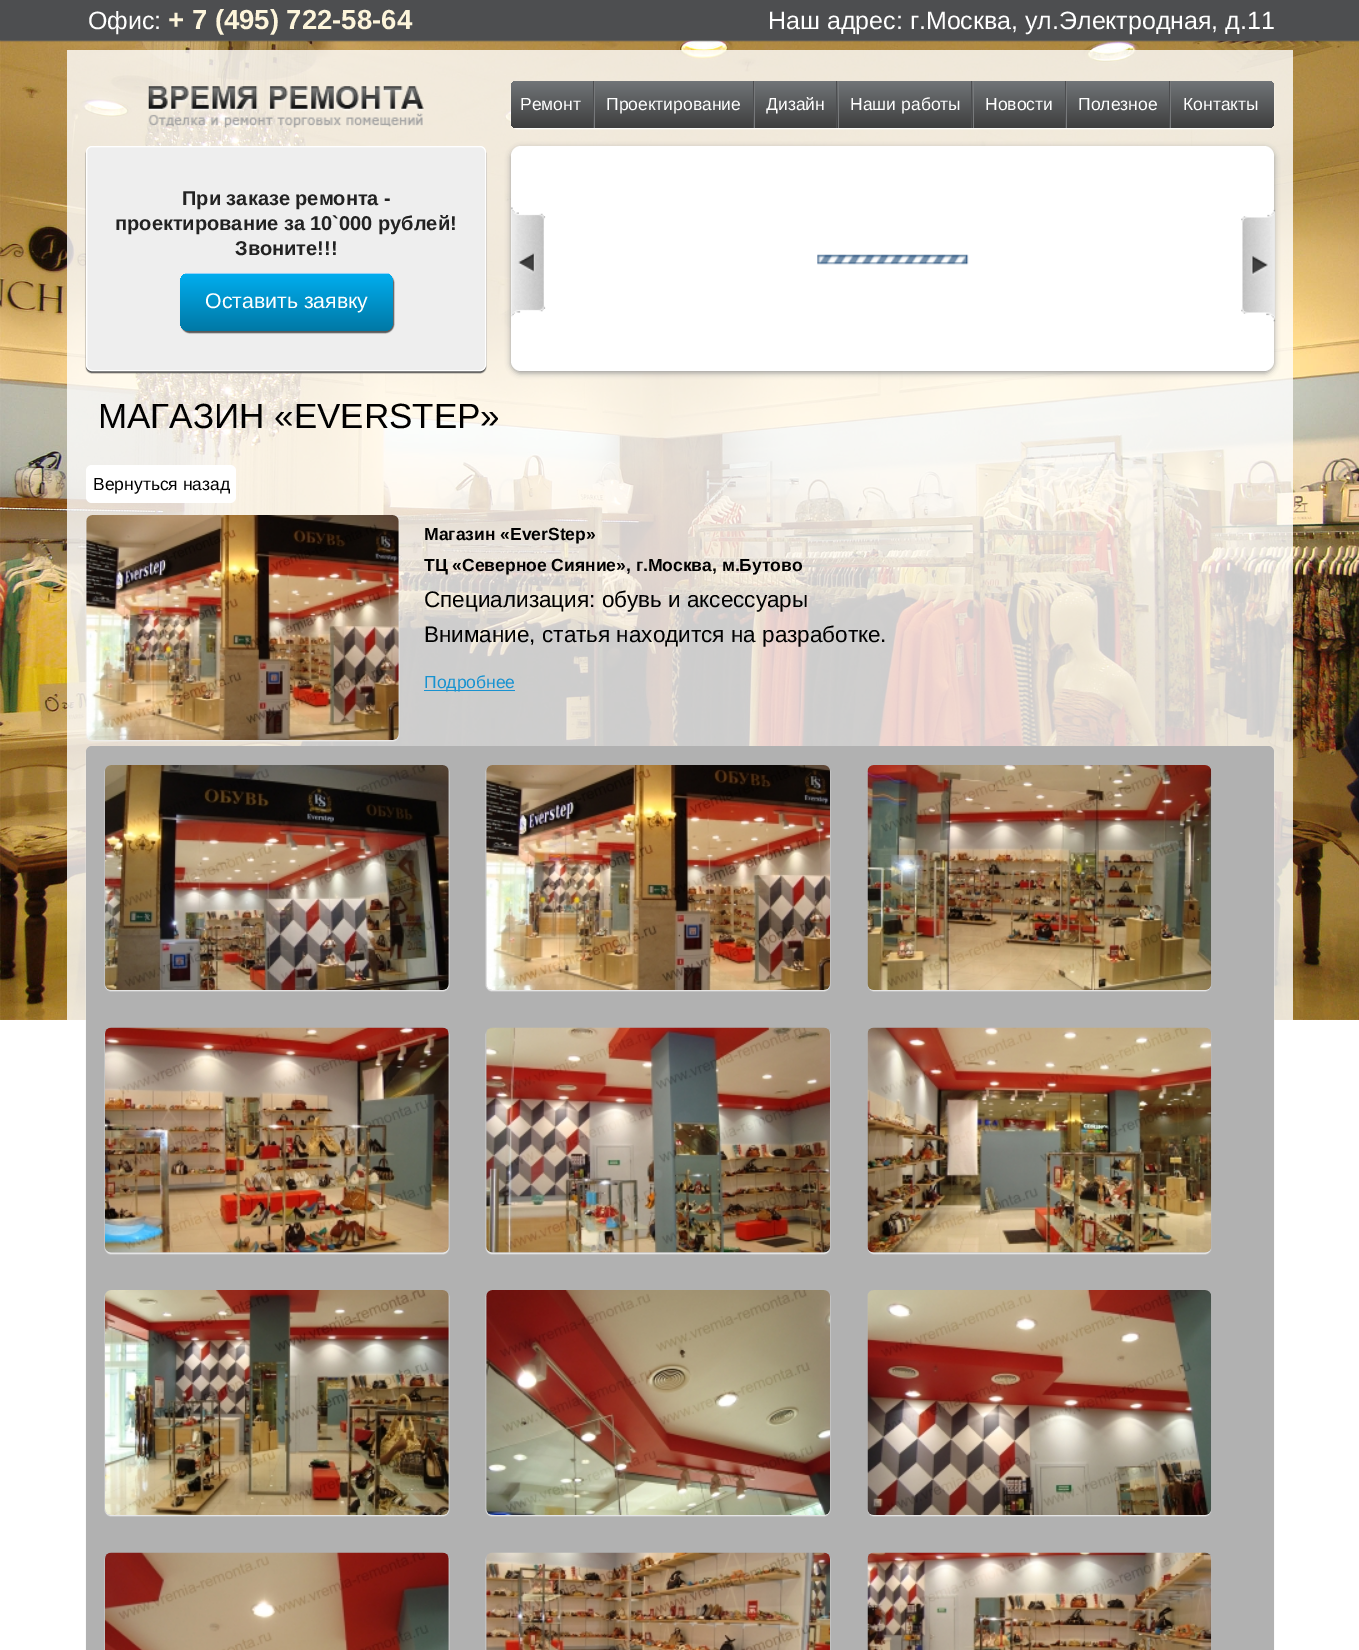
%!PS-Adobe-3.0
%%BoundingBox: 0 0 1359 1650
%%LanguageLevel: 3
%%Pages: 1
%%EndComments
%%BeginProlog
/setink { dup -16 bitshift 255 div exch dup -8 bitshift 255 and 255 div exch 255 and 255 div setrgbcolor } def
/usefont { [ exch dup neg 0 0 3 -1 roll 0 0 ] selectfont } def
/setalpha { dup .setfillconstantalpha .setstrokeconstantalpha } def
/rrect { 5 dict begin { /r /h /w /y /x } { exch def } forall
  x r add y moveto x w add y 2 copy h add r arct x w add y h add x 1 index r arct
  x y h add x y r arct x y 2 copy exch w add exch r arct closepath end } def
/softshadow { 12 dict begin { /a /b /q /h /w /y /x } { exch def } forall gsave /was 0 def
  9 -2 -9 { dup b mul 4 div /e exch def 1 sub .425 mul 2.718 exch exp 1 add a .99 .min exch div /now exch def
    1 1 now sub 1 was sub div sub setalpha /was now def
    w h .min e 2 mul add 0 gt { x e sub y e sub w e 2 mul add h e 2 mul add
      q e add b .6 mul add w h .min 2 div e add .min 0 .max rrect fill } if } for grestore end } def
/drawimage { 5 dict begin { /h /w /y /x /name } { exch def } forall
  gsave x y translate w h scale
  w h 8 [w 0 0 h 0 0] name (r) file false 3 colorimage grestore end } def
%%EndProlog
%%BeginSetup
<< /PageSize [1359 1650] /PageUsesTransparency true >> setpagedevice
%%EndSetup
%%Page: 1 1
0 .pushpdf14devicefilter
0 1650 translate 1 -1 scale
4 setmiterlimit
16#FFFFFF setink
0 0 1359 1650 rectfill
(img1.raw) 0 40 1359 980 drawimage
0.8 setalpha
67 50 1226 970 rectfill
1 setalpha
16#555555 setink
0 1 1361 40 0 0.5 1 softshadow
16#4D4E50 setink
0 0 1359 40 rectfill
/LiberationSans-Regular 25 usefont
16#FFFFFF setink
88 29 moveto (Офис:) show
/LiberationSans-Bold 27.5 usefont
16#FDF5DB setink
168 29 moveto (+ 7 \(495\) 722-58-64) show
/LiberationSans-Regular 25 usefont
16#FFFFFF setink
768 29 moveto (Наш адрес: г.Москва, ул.Электродная, д.11) show
(img2.raw) 148 86 276 42 drawimage
511 83 763 46 6 0.5 1 softshadow
gsave 511 81 763 47 6 rrect clip newpath
<< /ShadingType 2 /ColorSpace /DeviceRGB /Coords [893 128 893 81] /Extend [true true] /Function << /FunctionType 2 /Domain [0 1] /C0 [0.243 0.243 0.243] /C1 [0.443 0.459 0.471] /N 1 >> >> shfill grestore
16#4D4E50 setink
593 81 1 47 rectfill
/LiberationSans-Regular 17.5 usefont
16#FFFFFF setink
520 110 moveto (Ремонт) show
16#4D4E50 setink
753 81 1 47 rectfill
16#77797B setink
594 81 1 47 rectfill
16#FFFFFF setink
606 110 moveto (Проектирование) show
16#4D4E50 setink
836 81 1 47 rectfill
16#77797B setink
754 81 1 47 rectfill
16#FFFFFF setink
766 110 moveto (Дизайн) show
16#4D4E50 setink
971 81 1 47 rectfill
16#77797B setink
838 81 1 47 rectfill
16#FFFFFF setink
850 110 moveto (Наши работы) show
16#4D4E50 setink
1065 81 1 47 rectfill
16#77797B setink
973 81 1 47 rectfill
16#FFFFFF setink
985 110 moveto (Новости) show
16#4D4E50 setink
1169 81 1 47 rectfill
16#77797B setink
1066 81 1 47 rectfill
16#FFFFFF setink
1078 110 moveto (Полезное) show
16#77797B setink
1170 81 1 47 rectfill
16#FFFFFF setink
1183 110 moveto (Контакты) show
16#555555 setink
86 148 400 225 6 0.5 1 softshadow
16#EEEEEE setink
86.5 146.5 399 224 5.5 rrect gsave fill grestore
16#FFFFFF setink
stroke
/LiberationSans-Bold 20 usefont
16#222222 setink
[
    [(При заказе ремонта -) 182 205]
    [(проектирование за 10`000 рублей!) 115 230]
    [(Звоните!!!) 235 255]
] { aload pop moveto show } forall
16#555555 setink
181 274 213 59 9 0.5 1 softshadow
gsave
180 273 213 58 9 rrect clip newpath
gsave 180 274 moveto 393 274 lineto 393 322 lineto 393 327 389 331 384 331 curveto 189 331 lineto 184 331 180 327 180 322 curveto closepath clip newpath
<< /ShadingType 2 /ColorSpace /DeviceRGB /Coords [180 274 180 331] /Extend [true true] /Function << /FunctionType 2 /Domain [0 1] /C0 [0 0.678 0.933] /C1 [0 0.471 0.647] /N 1 >> >> shfill grestore
grestore
16#96D1F8 setink
185 273 204 1 rectfill
/LiberationSans-Regular 21.25 usefont
16#FFFFFF setink
205 308 moveto (Оставить заявку) show
16#999999 setink
511 148 763 225 10 3 1 softshadow
16#FFFFFF setink
511 146 763 225 10 rrect fill
(img3.raw) 817 254 152 11 drawimage
(img4.raw) 511 207 35 110 drawimage
(img5.raw) 1241 209 35 113 drawimage
/LiberationSans-Regular 35 usefont
16#000000 setink
98 428 moveto (МАГАЗИН «EVERSTEP») show
16#FFFFFF setink
86 465 150 38 6 rrect fill
/LiberationSans-Regular 17.5 usefont
16#000000 setink
93 490 moveto (Вернуться назад) show
16#EEEEEE setink
86 516 313 225 6 0.5 1 softshadow
(img6.raw) 86 515 313 225 drawimage
/LiberationSans-Bold 17.5 usefont
16#000000 setink
424 540 moveto (Магазин «EverStep») show
424 571 moveto (ТЦ «Северное Сияние», г.Москва, м.Бутово) show
/LiberationSans-Regular 22.5 usefont
424 607 moveto (Специализация: обувь и аксессуары) show
424 642 moveto (Внимание, статья находится на разработке.) show
16#1892D0 setink
424 690 91 1 rectfill
/LiberationSans-Regular 17.5 usefont
424 688 moveto (Подробнее) show
16#EEEEEE setink
86 748 1188 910 6 0.5 1 softshadow
16#B1B1B1 setink
86 746 1188 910 6 rrect fill
16#EEEEEE setink
105 766 344 225 6 0.5 1 softshadow
(img7.raw) 105 765 344 225 drawimage
486 766 344 225 6 0.5 1 softshadow
(img8.raw) 486 765 344 225 drawimage
868 766 343 225 6 0.5 1 softshadow
(img9.raw) 867 765 345 225 drawimage
105 1029 344 225 6 0.5 1 softshadow
(img10.raw) 105 1027 344 226 drawimage
486 1029 344 225 6 0.5 1 softshadow
(img11.raw) 486 1027 344 226 drawimage
868 1029 343 225 6 0.5 1 softshadow
(img12.raw) 867 1027 345 226 drawimage
105 1291 344 225 6 0.5 1 softshadow
(img13.raw) 105 1290 344 225 drawimage
486 1291 344 225 6 0.5 1 softshadow
(img14.raw) 486 1290 344 225 drawimage
868 1291 343 225 6 0.5 1 softshadow
(img15.raw) 867 1290 345 225 drawimage
105 1554 344 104 6 0.5 1 softshadow
(img16.raw) 105 1552 344 98 drawimage
486 1554 344 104 6 0.5 1 softshadow
(img17.raw) 486 1552 344 98 drawimage
868 1554 343 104 6 0.5 1 softshadow
(img18.raw) 867 1552 345 98 drawimage
.poppdf14devicefilter showpage
%%EOF
